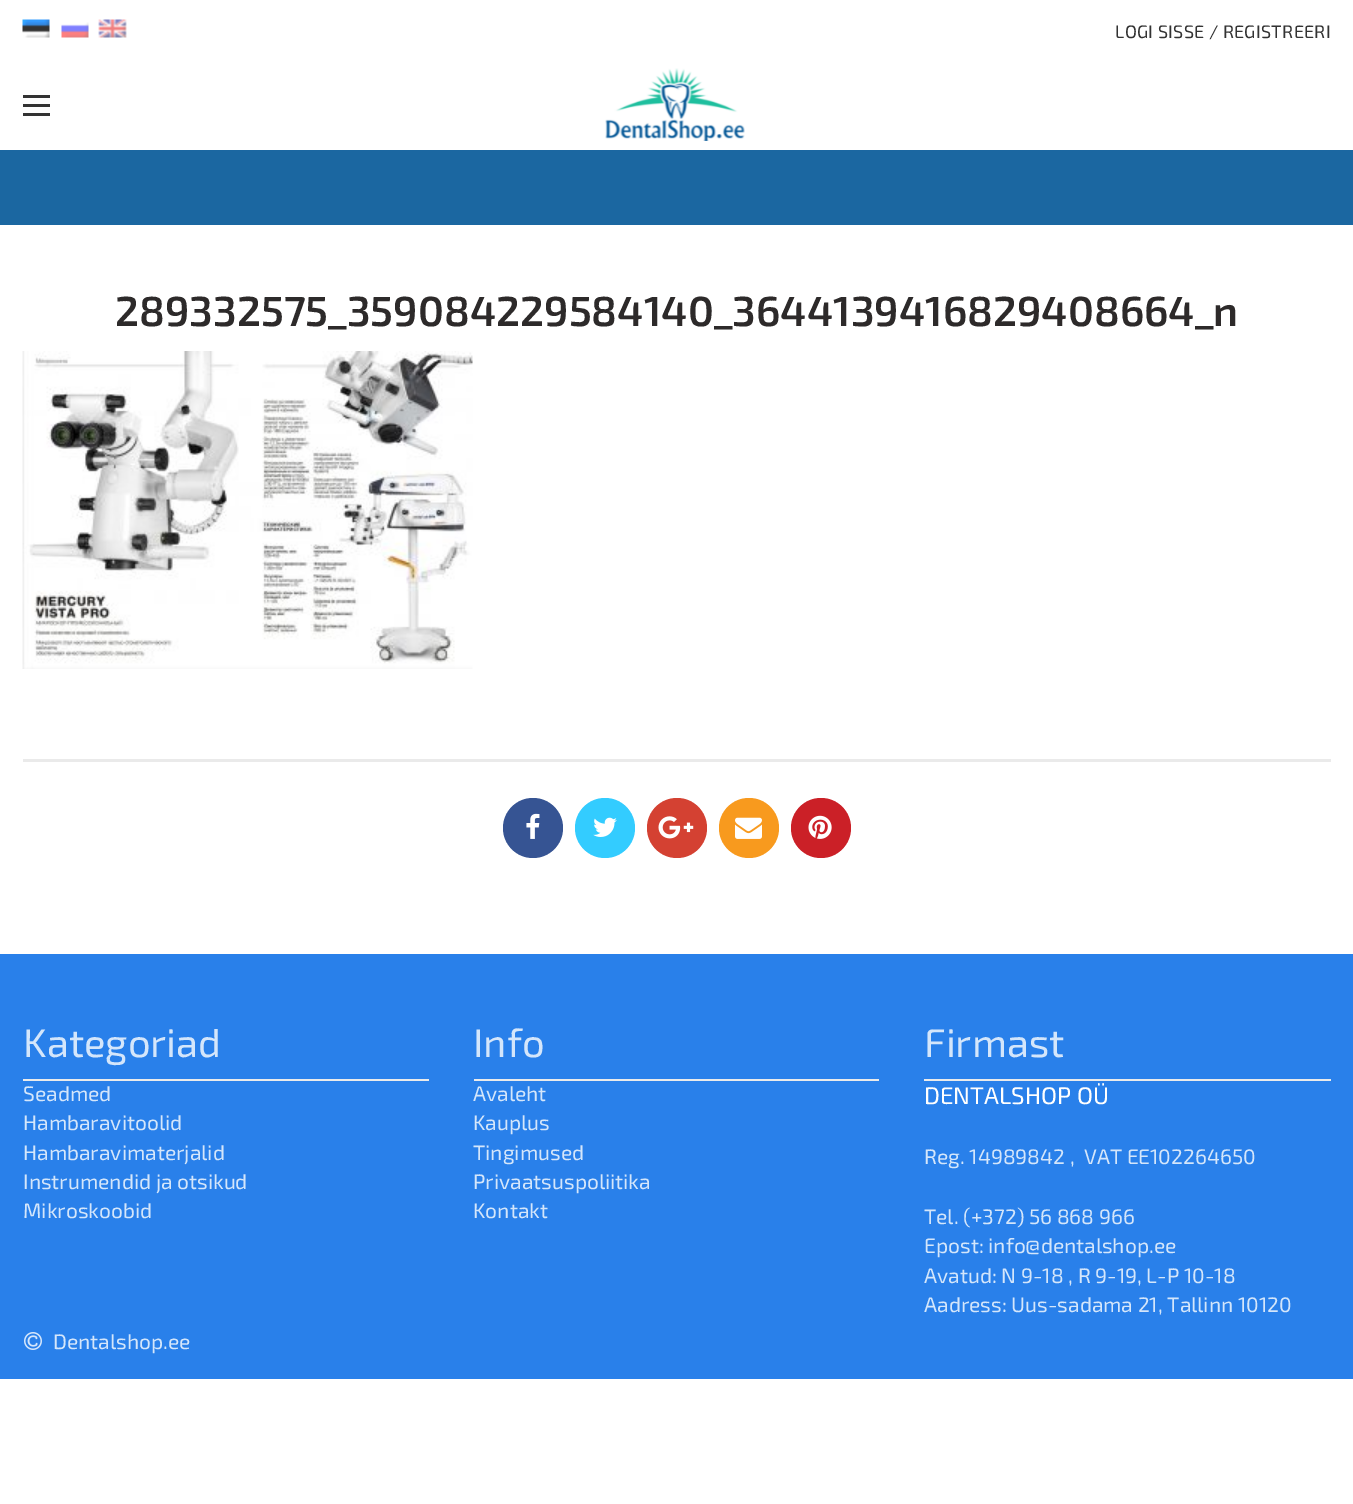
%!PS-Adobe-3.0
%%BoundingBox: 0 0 1353 1504
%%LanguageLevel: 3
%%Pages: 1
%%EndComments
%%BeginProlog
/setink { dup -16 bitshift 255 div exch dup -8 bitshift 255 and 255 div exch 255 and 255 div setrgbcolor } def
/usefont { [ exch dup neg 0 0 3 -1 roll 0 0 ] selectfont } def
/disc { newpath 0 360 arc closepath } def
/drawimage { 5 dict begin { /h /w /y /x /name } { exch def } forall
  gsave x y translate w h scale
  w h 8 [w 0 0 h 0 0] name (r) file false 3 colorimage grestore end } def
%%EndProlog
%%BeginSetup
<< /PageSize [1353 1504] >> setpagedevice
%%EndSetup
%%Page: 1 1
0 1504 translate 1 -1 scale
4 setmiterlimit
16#FFFFFF setink
0 0 1353 1504 rectfill
(img1.raw) 22 19 28 19 drawimage
(img2.raw) 61 22 28 16 drawimage
(img3.raw) 98 19 29 19 drawimage
/Exo2-Regular 18 usefont
16#333333 setink
1115 38 moveto 0.3 0 (LOGI SISSE / REGISTREERI) ashow
[
    [23 104 27 3 16#333333]
    [23 95 27 3 16#333333]
    [23 113 27 3 16#333333]
] { aload pop setink rectfill } forall
(img4.raw) 605 68 140 73 drawimage
16#1B67A1 setink
0 150 1353 75 rectfill
/Exo2-SemiBold 42 usefont
16#2D2A2A setink
115 326 moveto (289332575_359084229584140_3644139416829408664_n) show
(img5.raw) 22 351 451 318 drawimage
16#EAEAEA setink
23 759 1308 3 rectfill
16#365493 setink
533 828 30 disc fill
(img6.raw) 526 813 14 26 drawimage
16#33CCFF setink
605 828 30 disc fill
(img7.raw) 593 817 24 20 drawimage
16#D44132 setink
677 828 30 disc fill
(img8.raw) 658 816 36 23 drawimage
16#F89A1E setink
749 828 30 disc fill
(img9.raw) 735 817 27 22 drawimage
16#CB2027 setink
821 828 30 disc fill
(img10.raw) 808 815 24 24 drawimage
16#2980EA setink
0 954 1353 425 rectfill
/Exo2-Regular 40 usefont
16#D4E6FB setink
23 1057 moveto (Kategoriad) show
16#EBEBEB setink
23 1079 406 2 rectfill
/Exo2-Regular 21 usefont
16#D4E6FB setink
[
    [(Seadmed) 23 1101]
    [(Hambaravitoolid) 23 1130]
    [(Hambaravimaterjalid) 23 1160]
    [(Instrumendid ja otsikud) 23 1189]
    [(Mikroskoobid) 23 1218]
] { aload pop moveto show } forall
/Exo2-Regular 40 usefont
473 1057 moveto (Info) show
16#EBEBEB setink
474 1079 405 2 rectfill
/Exo2-Regular 21 usefont
16#D4E6FB setink
[
    [(Avaleht) 473 1101]
    [(Kauplus) 473 1130]
    [(Tingimused) 473 1160]
    [(Privaatsuspoliitika) 473 1189]
    [(Kontakt) 473 1218]
] { aload pop moveto show } forall
/Exo2-Regular 40 usefont
924 1057 moveto (Firmast) show
16#EBEBEB setink
924 1079 407 2 rectfill
/Exo2-Regular 24 usefont
16#FFFFFF setink
924 1104 moveto (DENTALSHOP OÜ) show
/Exo2-Regular 21 usefont
16#D4E6FB setink
[
    [(Reg. 14989842 ,  VAT EE102264650) 924 1164]
    [(Tel. \(+372\) 56 868 966) 924 1224]
    [(Epost: info@dentalshop.ee) 924 1253]
    [(Avatud: N 9-18 , R 9-19, L-P 10-18) 924 1283]
    [(Aadress: Uus-sadama 21, Tallinn 10120) 924 1312]
] { aload pop moveto show } forall
(img11.raw) 24 1332 18 18 drawimage
53 1349 moveto (Dentalshop.ee) show
showpage
%%EOF
